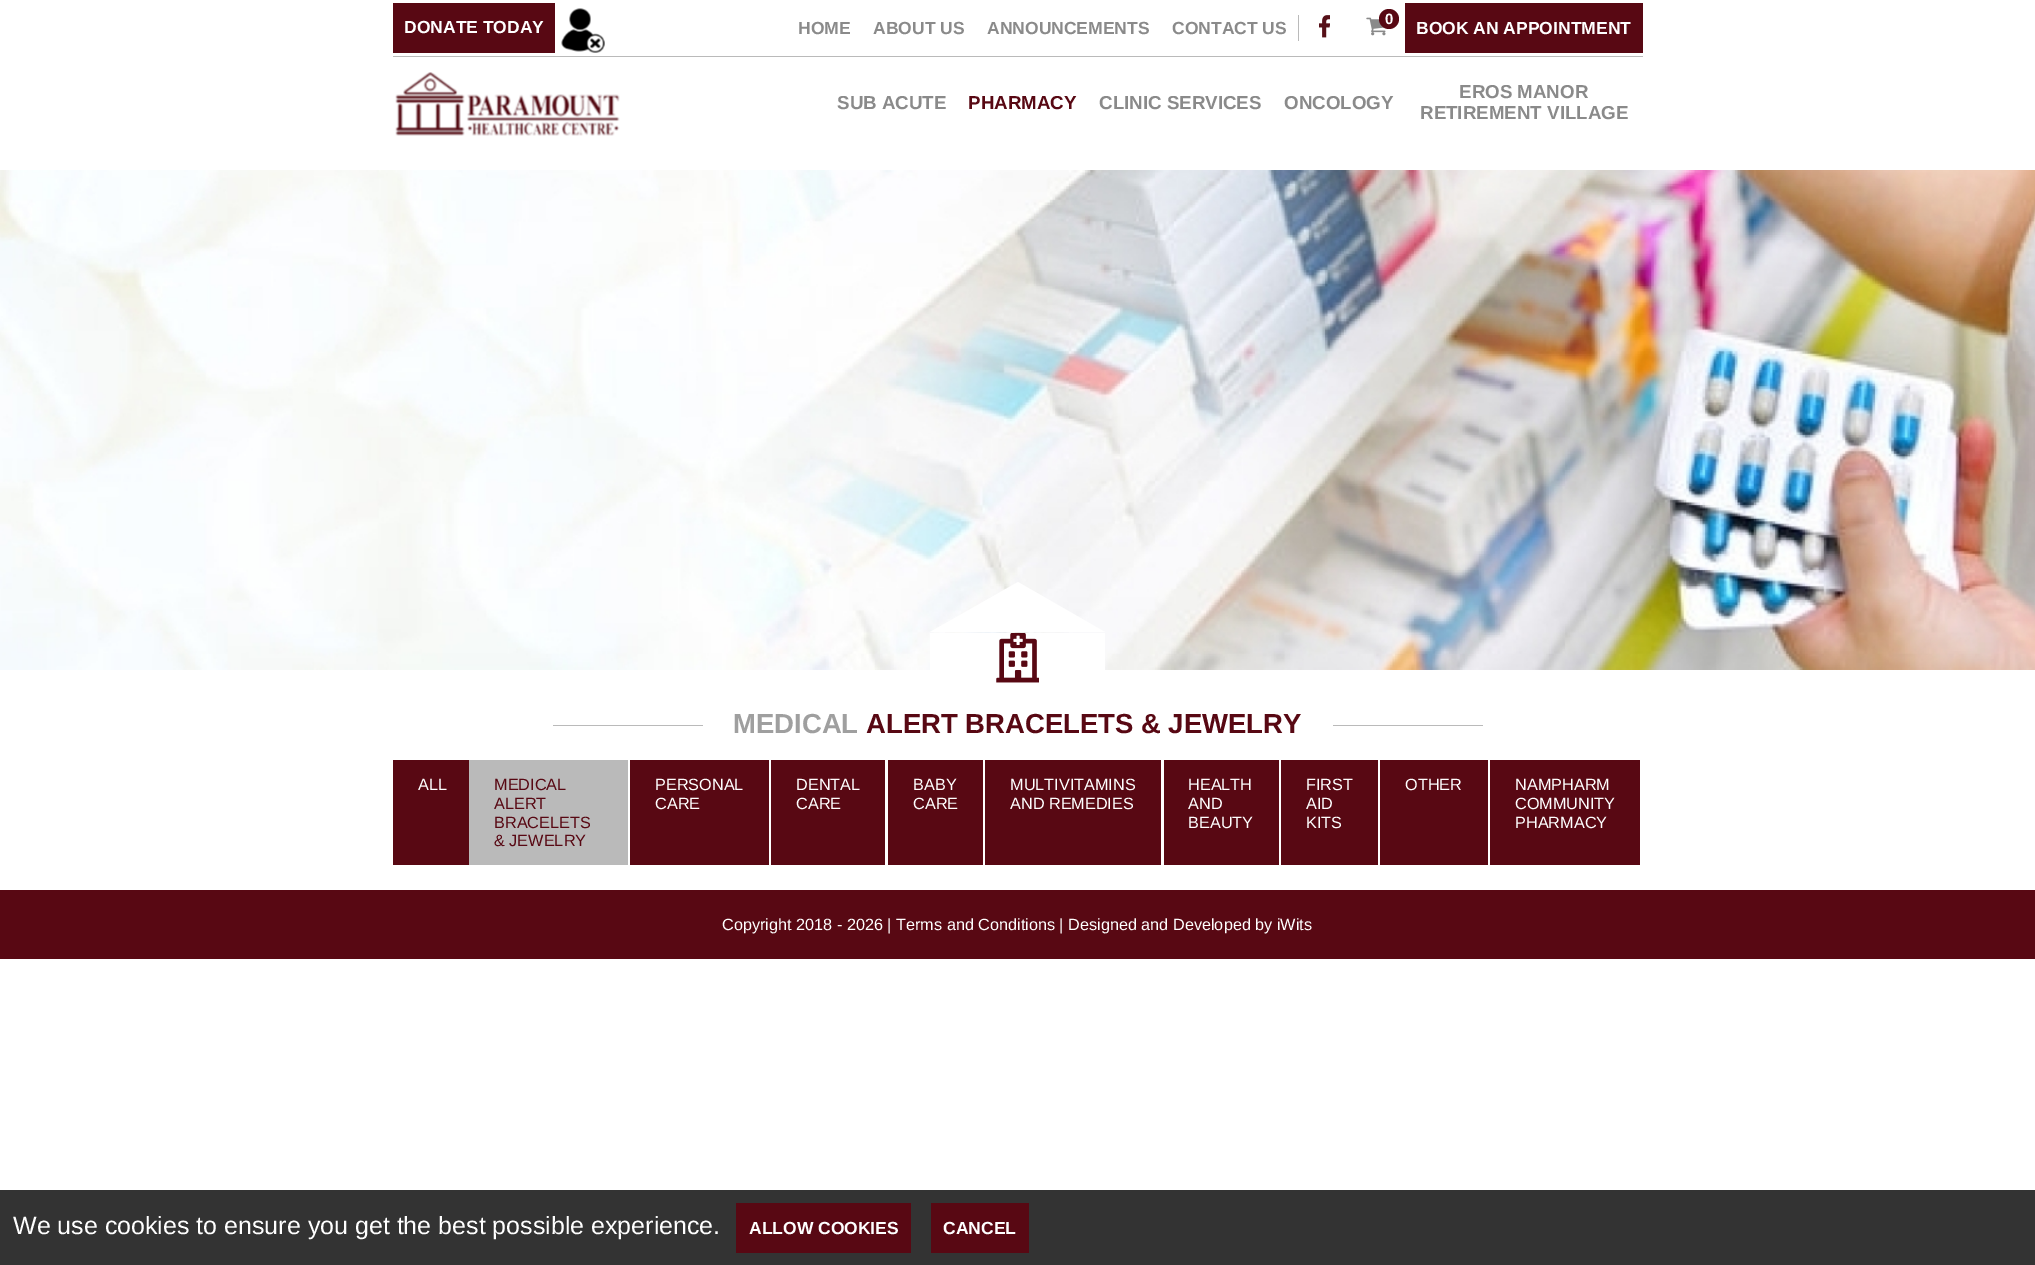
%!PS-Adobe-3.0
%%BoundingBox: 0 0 2035 1265
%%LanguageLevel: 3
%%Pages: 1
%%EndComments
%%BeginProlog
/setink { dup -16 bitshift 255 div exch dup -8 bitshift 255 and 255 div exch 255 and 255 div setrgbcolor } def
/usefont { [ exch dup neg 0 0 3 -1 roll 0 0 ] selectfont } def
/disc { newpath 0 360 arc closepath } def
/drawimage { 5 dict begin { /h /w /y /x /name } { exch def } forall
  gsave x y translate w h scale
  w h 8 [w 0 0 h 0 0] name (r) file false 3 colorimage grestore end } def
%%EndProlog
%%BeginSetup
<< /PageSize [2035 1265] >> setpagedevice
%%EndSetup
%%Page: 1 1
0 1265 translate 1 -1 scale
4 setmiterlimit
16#FFFFFF setink
0 0 2035 1265 rectfill
16#BABABA setink
393 56 1250 1 rectfill
16#580813 setink
393 3 162 50 rectfill
/LiberationSans-Bold 17.5 usefont
16#FFFFFF setink
404 33 moveto (DONATE TODAY) show
(img1.raw) 561 8 44 45 drawimage
16#8A8A8A setink
[
    [(HOME) 798 34]
    [(ABOUT US) 873 34]
    [(ANNOUNCEMENTS) 987 34]
    [(CONTACT US) 1172 34]
] { aload pop moveto show } forall
16#BABABA setink
1298 15 1 26 rectfill
(img2.raw) 1319 15 11 23 drawimage
(img3.raw) 1366 17 20 19 drawimage
16#580813 setink
1389 19 10 disc fill
/LiberationSans-Bold 15 usefont
16#FFFFFF setink
1385 24 moveto (0) show
16#580813 setink
1405 3 238 50 rectfill
/LiberationSans-Bold 17.5 usefont
16#FFFFFF setink
1416 34 moveto (BOOK AN APPOINTMENT) show
(img4.raw) 395 72 225 64 drawimage
/LiberationSans-Bold 18.75 usefont
16#8A8A8A setink
837 109 moveto (SUB ACUTE) show
16#580813 setink
968 109 moveto (PHARMACY) show
16#8A8A8A setink
[
    [(CLINIC SERVICES) 1099 109]
    [(ONCOLOGY) 1284 109]
    [(EROS MANOR) 1459 98]
    [(RETIREMENT VILLAGE) 1420 119]
] { aload pop moveto show } forall
(img5.raw) 0 170 2035 500 drawimage
16#FFFFFF setink
930 633 175 37 rectfill
1105 632 moveto 930 632 lineto 1018 582 lineto closepath fill
(img6.raw) 996 633 43 50 drawimage
16#BABABA setink
553 725 150 1 rectfill
/LiberationSans-Bold 27.5 usefont
16#9F9F9F setink
733 733 moveto (MEDICAL) show
16#580813 setink
866 733 moveto (ALERT BRACELETS & JEWELRY) show
16#BABABA setink
1333 725 150 1 rectfill
16#580813 setink
393 760 76 105 rectfill
/LiberationSans-Regular 16.25 usefont
16#FFFFFF setink
418 790 moveto (ALL) show
16#BABABA setink
469 760 159 105 rectfill
16#580813 setink
[
    [(MEDICAL) 494 790]
    [(ALERT) 494 809]
    [(BRACELETS) 494 828]
    [(& JEWELRY) 494 846]
] { aload pop moveto show } forall
630 760 139 105 rectfill
16#FFFFFF setink
655 790 moveto (PERSONAL) show
655 809 moveto (CARE) show
16#580813 setink
771 760 114 105 rectfill
16#FFFFFF setink
796 790 moveto (DENTAL) show
796 809 moveto (CARE) show
16#580813 setink
888 760 95 105 rectfill
16#FFFFFF setink
913 790 moveto (BABY) show
913 809 moveto (CARE) show
16#580813 setink
985 760 176 105 rectfill
16#FFFFFF setink
1010 790 moveto (MULTIVITAMINS) show
1010 809 moveto (AND REMEDIES) show
16#580813 setink
1164 760 115 105 rectfill
16#FFFFFF setink
[
    [(HEALTH) 1188 790]
    [(AND) 1188 809]
    [(BEAUTY) 1188 828]
] { aload pop moveto show } forall
16#580813 setink
1281 760 97 105 rectfill
16#FFFFFF setink
[
    [(FIRST) 1306 790]
    [(AID) 1306 809]
    [(KITS) 1306 828]
] { aload pop moveto show } forall
16#580813 setink
1380 760 108 105 rectfill
16#FFFFFF setink
1405 790 moveto (OTHER) show
16#580813 setink
1490 760 150 105 rectfill
16#FFFFFF setink
[
    [(NAMPHARM) 1515 790]
    [(COMMUNITY) 1515 809]
    [(PHARMACY) 1515 828]
] { aload pop moveto show } forall
16#580813 setink
0 890 2035 69 rectfill
16#FFFFFF setink
722 930 moveto (Copyright 2018 - 2026 | Terms and Conditions | Designed and Developed by iWits) show
16#333333 setink
0 1190 2035 75 rectfill
/LiberationSans-Regular 25 usefont
16#FFFFFF setink
13 1234 moveto (We use cookies to ensure you get the best possible experience.) show
16#580813 setink
736 1203 175 50 rectfill
/LiberationSans-Bold 17.5 usefont
16#FFFFFF setink
749 1234 moveto (ALLOW COOKIES) show
16#580813 setink
931 1203 98 50 rectfill
16#FFFFFF setink
943 1234 moveto (CANCEL) show
showpage
%%EOF
